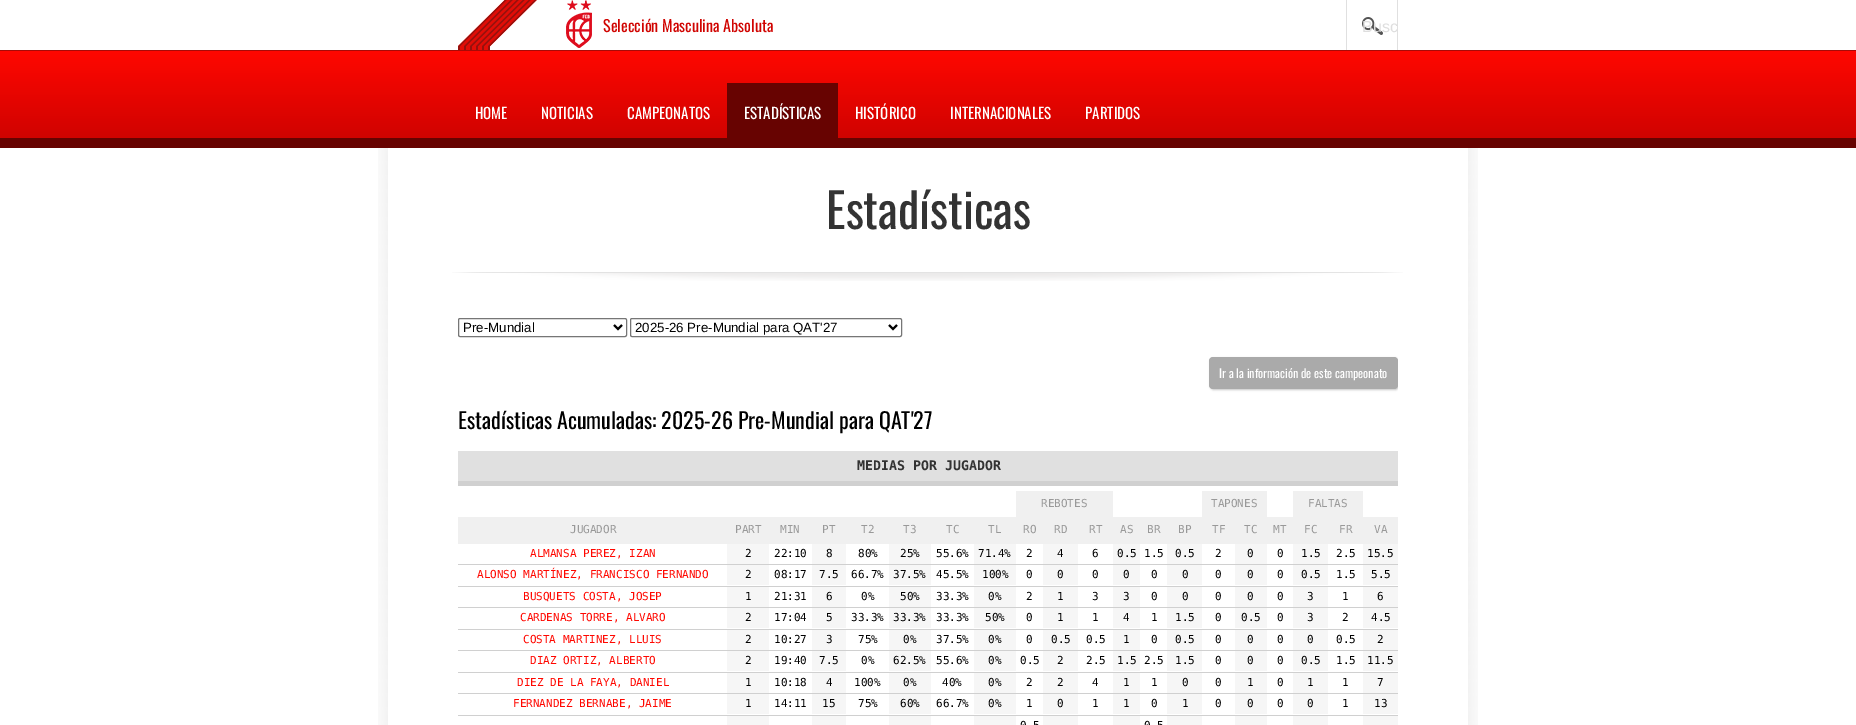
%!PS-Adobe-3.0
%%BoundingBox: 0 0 1856 725
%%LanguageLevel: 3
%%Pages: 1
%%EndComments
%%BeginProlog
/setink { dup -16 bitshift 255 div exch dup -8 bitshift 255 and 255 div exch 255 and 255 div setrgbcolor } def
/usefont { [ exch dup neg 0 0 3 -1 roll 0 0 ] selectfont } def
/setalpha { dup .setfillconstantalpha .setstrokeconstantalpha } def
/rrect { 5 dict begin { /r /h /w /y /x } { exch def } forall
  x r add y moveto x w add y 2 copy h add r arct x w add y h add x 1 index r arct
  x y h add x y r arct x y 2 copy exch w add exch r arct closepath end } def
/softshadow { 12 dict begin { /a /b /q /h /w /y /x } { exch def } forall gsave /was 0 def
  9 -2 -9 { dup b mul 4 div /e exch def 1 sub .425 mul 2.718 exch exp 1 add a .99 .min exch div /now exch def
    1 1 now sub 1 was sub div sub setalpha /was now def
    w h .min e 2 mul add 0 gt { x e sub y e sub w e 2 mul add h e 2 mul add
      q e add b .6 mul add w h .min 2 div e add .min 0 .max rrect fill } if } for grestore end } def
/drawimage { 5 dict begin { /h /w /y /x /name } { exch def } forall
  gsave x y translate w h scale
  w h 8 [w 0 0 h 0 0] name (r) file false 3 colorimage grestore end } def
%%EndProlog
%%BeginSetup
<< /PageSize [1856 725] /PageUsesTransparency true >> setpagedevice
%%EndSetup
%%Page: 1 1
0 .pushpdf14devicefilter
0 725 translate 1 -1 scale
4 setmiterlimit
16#FFFFFF setink
0 0 1856 725 rectfill
(img1.raw) 378 148 1100 577 drawimage
(img2.raw) 458 0 79 50 drawimage
(img3.raw) 566 0 26 48 drawimage
/Oswald-Regular 16 usefont
16#D00300 setink
603 32 moveto (Selección Masculina Absoluta) show
(img4.raw) 1362 17 21 18 drawimage
16#E0E0E0 setink
1397 0 1 50 rectfill
1346 0 1 50 rectfill
/LiberationSans-Regular 16 usefont
16#DEDEDE setink
1362 32 moveto (Busc) show
gsave 0 51 moveto 1856 51 lineto 1856 138 lineto 0 138 lineto closepath clip newpath
<< /ShadingType 2 /ColorSpace /DeviceRGB /Coords [928 51 928 138] /Extend [true true] /Function << /FunctionType 2 /Domain [0 1] /C0 [1 0.027 0] /C1 [0.816 0.012 0] /N 1 >> >> shfill grestore
16#A70A07 setink
0 50 1856 1 rectfill
16#670301 setink
0 138 1856 10 rectfill
/Oswald-Regular 15 usefont
16#FFFFFF setink
[
    [(HOME) 475 119]
    [(NOTICIAS) 541 119]
    [(CAMPEONATOS) 627 119]
] { aload pop moveto show } forall
16#670301 setink
727 83 111 55 rectfill
16#FFFFFF setink
[
    [(ESTADÍSTICAS) 744 119]
    [(HISTÓRICO) 855 119]
    [(INTERNACIONALES) 950 119]
    [(PARTIDOS) 1085 119]
] { aload pop moveto show } forall
(img5.raw) 452 272 951 9 drawimage
/Oswald-Regular 48 usefont
16#333333 setink
826 229 moveto (Estadísticas) show
16#767676 setink
458.5 318.5 168 18 1.5 rrect stroke
16#000000 setink
2 setlinewidth
614 325 moveto 618 329 lineto 622 325 lineto stroke
/LiberationSans-Regular 13.3 usefont
463 332 moveto (Pre-Mundial) show
16#767676 setink
1 setlinewidth
630.5 318.5 271 18 1.5 rrect stroke
16#000000 setink
2 setlinewidth
889 325 moveto 893 329 lineto 897 325 lineto stroke
635 332 moveto (2025-26 Pre-Mundial para QAT'27) show
gsave
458 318 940 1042 rectclip
1210 358 189 32 4 1 0.22 softshadow
grestore
16#AAAAAA setink
1209 357 189 32 4 rrect fill
/Oswald-Regular 12 usefont
16#FFFFFF setink
1219 378 moveto (Ir a la información de este campeonato) show
/Oswald-Regular 22 usefont
16#000000 setink
458 429 moveto (Estadísticas Acumuladas: 2025-26 Pre-Mundial para QAT'27) show
16#E0E0E0 setink
458 451 940 30 rectfill
16#D0D0D0 setink
458 481 940 5 rectfill
/DejaVuSansMono-Bold 13.25 usefont
16#333333 setink
857 470 moveto (MEDIAS POR JUGADOR) show
16#F0F0F0 setink
1016 491 97 26 rectfill
/DejaVuSansMono-Regular 11 usefont
16#999999 setink
1041 507 moveto (REBOTES) show
16#F0F0F0 setink
1202 491 65 26 rectfill
16#999999 setink
1211 507 moveto (TAPONES) show
16#F0F0F0 setink
1293 491 70 26 rectfill
16#999999 setink
1308 507 moveto (FALTAS) show
16#F0F0F0 setink
458 517 940 27 rectfill
16#999999 setink
[
    [(JUGADOR) 570 533]
    [(PART) 735 533]
    [(MIN) 780 533]
    [(PT) 822 533]
    [(T2) 861 533]
    [(T3) 903 533]
    [(TC) 946 533]
    [(TL) 988 533]
    [(RO) 1023 533]
    [(RD) 1054 533]
    [(RT) 1089 533]
    [(AS) 1120 533]
    [(BR) 1147 533]
    [(BP) 1178 533]
    [(TF) 1212 533]
    [(TC) 1244 533]
    [(MT) 1273 533]
    [(FC) 1304 533]
    [(FR) 1339 533]
    [(VA) 1374 533]
] { aload pop moveto show } forall
16#FF0700 setink
530 557 moveto (ALMANSA PEREZ, IZAN) show
16#F6F6F6 setink
727 544 42 20 rectfill
16#000000 setink
745 557 moveto (2) show
774 557 moveto (22:10) show
16#F6F6F6 setink
812 544 34 20 rectfill
16#000000 setink
826 557 moveto (8) show
858 557 moveto (80%) show
16#F6F6F6 setink
889 544 42 20 rectfill
16#000000 setink
900 557 moveto (25%) show
936 557 moveto (55.6%) show
16#F6F6F6 setink
974 544 42 20 rectfill
16#000000 setink
978 557 moveto (71.4%) show
1026 557 moveto (2) show
16#F6F6F6 setink
1043 544 35 20 rectfill
16#000000 setink
1057 557 moveto (4) show
1092 557 moveto (6) show
16#F6F6F6 setink
1113 544 27 20 rectfill
16#000000 setink
1117 557 moveto (0.5) show
1144 557 moveto (1.5) show
16#F6F6F6 setink
1167 544 35 20 rectfill
16#000000 setink
1175 557 moveto (0.5) show
1215 557 moveto (2) show
16#F6F6F6 setink
1235 544 32 20 rectfill
16#000000 setink
1247 557 moveto (0) show
1277 557 moveto (0) show
16#F6F6F6 setink
1293 544 35 20 rectfill
16#000000 setink
1301 557 moveto (1.5) show
1336 557 moveto (2.5) show
16#F6F6F6 setink
1363 544 35 20 rectfill
16#D0D0D0 setink
458 564 940 1 rectfill
16#000000 setink
1367 557 moveto (15.5) show
16#FF0700 setink
477 578 moveto (ALONSO MARTÍNEZ, FRANCISCO FERNANDO) show
16#F6F6F6 setink
727 565 42 20 rectfill
16#000000 setink
745 578 moveto (2) show
774 578 moveto (08:17) show
16#F6F6F6 setink
812 565 34 20 rectfill
16#000000 setink
819 578 moveto (7.5) show
851 578 moveto (66.7%) show
16#F6F6F6 setink
889 565 42 20 rectfill
16#000000 setink
893 578 moveto (37.5%) show
936 578 moveto (45.5%) show
16#F6F6F6 setink
974 565 42 20 rectfill
16#000000 setink
982 578 moveto (100%) show
1026 578 moveto (0) show
16#F6F6F6 setink
1043 565 35 20 rectfill
16#000000 setink
1057 578 moveto (0) show
1092 578 moveto (0) show
16#F6F6F6 setink
1113 565 27 20 rectfill
16#000000 setink
1123 578 moveto (0) show
1151 578 moveto (0) show
16#F6F6F6 setink
1167 565 35 20 rectfill
16#000000 setink
1182 578 moveto (0) show
1215 578 moveto (0) show
16#F6F6F6 setink
1235 565 32 20 rectfill
16#000000 setink
1247 578 moveto (0) show
1277 578 moveto (0) show
16#F6F6F6 setink
1293 565 35 20 rectfill
16#000000 setink
1301 578 moveto (0.5) show
1336 578 moveto (1.5) show
16#F6F6F6 setink
1363 565 35 20 rectfill
16#D0D0D0 setink
458 586 940 1 rectfill
16#000000 setink
1371 578 moveto (5.5) show
16#FF0700 setink
523 600 moveto (BUSQUETS COSTA, JOSEP) show
16#F6F6F6 setink
727 587 42 20 rectfill
16#000000 setink
745 600 moveto (1) show
774 600 moveto (21:31) show
16#F6F6F6 setink
812 587 34 20 rectfill
16#000000 setink
826 600 moveto (6) show
861 600 moveto (0%) show
16#F6F6F6 setink
889 587 42 20 rectfill
16#000000 setink
900 600 moveto (50%) show
936 600 moveto (33.3%) show
16#F6F6F6 setink
974 587 42 20 rectfill
16#000000 setink
988 600 moveto (0%) show
1026 600 moveto (2) show
16#F6F6F6 setink
1043 587 35 20 rectfill
16#000000 setink
1057 600 moveto (1) show
1092 600 moveto (3) show
16#F6F6F6 setink
1113 587 27 20 rectfill
16#000000 setink
1123 600 moveto (3) show
1151 600 moveto (0) show
16#F6F6F6 setink
1167 587 35 20 rectfill
16#000000 setink
1182 600 moveto (0) show
1215 600 moveto (0) show
16#F6F6F6 setink
1235 587 32 20 rectfill
16#000000 setink
1247 600 moveto (0) show
1277 600 moveto (0) show
16#F6F6F6 setink
1293 587 35 20 rectfill
16#000000 setink
1307 600 moveto (3) show
1342 600 moveto (1) show
16#F6F6F6 setink
1363 587 35 20 rectfill
16#D0D0D0 setink
458 607 940 1 rectfill
16#000000 setink
1377 600 moveto (6) show
16#FF0700 setink
520 621 moveto (CARDENAS TORRE, ALVARO) show
16#F6F6F6 setink
727 608 42 20 rectfill
16#000000 setink
745 621 moveto (2) show
774 621 moveto (17:04) show
16#F6F6F6 setink
812 608 34 20 rectfill
16#000000 setink
826 621 moveto (5) show
851 621 moveto (33.3%) show
16#F6F6F6 setink
889 608 42 20 rectfill
16#000000 setink
893 621 moveto (33.3%) show
936 621 moveto (33.3%) show
16#F6F6F6 setink
974 608 42 20 rectfill
16#000000 setink
985 621 moveto (50%) show
1026 621 moveto (0) show
16#F6F6F6 setink
1043 608 35 20 rectfill
16#000000 setink
1057 621 moveto (1) show
1092 621 moveto (1) show
16#F6F6F6 setink
1113 608 27 20 rectfill
16#000000 setink
1123 621 moveto (4) show
1151 621 moveto (1) show
16#F6F6F6 setink
1167 608 35 20 rectfill
16#000000 setink
1175 621 moveto (1.5) show
1215 621 moveto (0) show
16#F6F6F6 setink
1235 608 32 20 rectfill
16#000000 setink
1241 621 moveto (0.5) show
1277 621 moveto (0) show
16#F6F6F6 setink
1293 608 35 20 rectfill
16#000000 setink
1307 621 moveto (3) show
1342 621 moveto (2) show
16#F6F6F6 setink
1363 608 35 20 rectfill
16#D0D0D0 setink
458 629 940 1 rectfill
16#000000 setink
1371 621 moveto (4.5) show
16#FF0700 setink
523 643 moveto (COSTA MARTINEZ, LLUIS) show
16#F6F6F6 setink
727 630 42 20 rectfill
16#000000 setink
745 643 moveto (2) show
774 643 moveto (10:27) show
16#F6F6F6 setink
812 630 34 20 rectfill
16#000000 setink
826 643 moveto (3) show
858 643 moveto (75%) show
16#F6F6F6 setink
889 630 42 20 rectfill
16#000000 setink
903 643 moveto (0%) show
936 643 moveto (37.5%) show
16#F6F6F6 setink
974 630 42 20 rectfill
16#000000 setink
988 643 moveto (0%) show
1026 643 moveto (0) show
16#F6F6F6 setink
1043 630 35 20 rectfill
16#000000 setink
1051 643 moveto (0.5) show
1086 643 moveto (0.5) show
16#F6F6F6 setink
1113 630 27 20 rectfill
16#000000 setink
1123 643 moveto (1) show
1151 643 moveto (0) show
16#F6F6F6 setink
1167 630 35 20 rectfill
16#000000 setink
1175 643 moveto (0.5) show
1215 643 moveto (0) show
16#F6F6F6 setink
1235 630 32 20 rectfill
16#000000 setink
1247 643 moveto (0) show
1277 643 moveto (0) show
16#F6F6F6 setink
1293 630 35 20 rectfill
16#000000 setink
1307 643 moveto (0) show
1336 643 moveto (0.5) show
16#F6F6F6 setink
1363 630 35 20 rectfill
16#D0D0D0 setink
458 650 940 1 rectfill
16#000000 setink
1377 643 moveto (2) show
16#FF0700 setink
530 664 moveto (DIAZ ORTIZ, ALBERTO) show
16#F6F6F6 setink
727 651 42 20 rectfill
16#000000 setink
745 664 moveto (2) show
774 664 moveto (19:40) show
16#F6F6F6 setink
812 651 34 20 rectfill
16#000000 setink
819 664 moveto (7.5) show
861 664 moveto (0%) show
16#F6F6F6 setink
889 651 42 20 rectfill
16#000000 setink
893 664 moveto (62.5%) show
936 664 moveto (55.6%) show
16#F6F6F6 setink
974 651 42 20 rectfill
16#000000 setink
988 664 moveto (0%) show
1020 664 moveto (0.5) show
16#F6F6F6 setink
1043 651 35 20 rectfill
16#000000 setink
1057 664 moveto (2) show
1086 664 moveto (2.5) show
16#F6F6F6 setink
1113 651 27 20 rectfill
16#000000 setink
1117 664 moveto (1.5) show
1144 664 moveto (2.5) show
16#F6F6F6 setink
1167 651 35 20 rectfill
16#000000 setink
1175 664 moveto (1.5) show
1215 664 moveto (0) show
16#F6F6F6 setink
1235 651 32 20 rectfill
16#000000 setink
1247 664 moveto (0) show
1277 664 moveto (0) show
16#F6F6F6 setink
1293 651 35 20 rectfill
16#000000 setink
1301 664 moveto (0.5) show
1336 664 moveto (1.5) show
16#F6F6F6 setink
1363 651 35 20 rectfill
16#D0D0D0 setink
458 672 940 1 rectfill
16#000000 setink
1367 664 moveto (11.5) show
16#FF0700 setink
517 686 moveto (DIEZ DE LA FAYA, DANIEL) show
16#F6F6F6 setink
727 673 42 20 rectfill
16#000000 setink
745 686 moveto (1) show
774 686 moveto (10:18) show
16#F6F6F6 setink
812 673 34 20 rectfill
16#000000 setink
826 686 moveto (4) show
854 686 moveto (100%) show
16#F6F6F6 setink
889 673 42 20 rectfill
16#000000 setink
903 686 moveto (0%) show
942 686 moveto (40%) show
16#F6F6F6 setink
974 673 42 20 rectfill
16#000000 setink
988 686 moveto (0%) show
1026 686 moveto (2) show
16#F6F6F6 setink
1043 673 35 20 rectfill
16#000000 setink
1057 686 moveto (2) show
1092 686 moveto (4) show
16#F6F6F6 setink
1113 673 27 20 rectfill
16#000000 setink
1123 686 moveto (1) show
1151 686 moveto (1) show
16#F6F6F6 setink
1167 673 35 20 rectfill
16#000000 setink
1182 686 moveto (0) show
1215 686 moveto (0) show
16#F6F6F6 setink
1235 673 32 20 rectfill
16#000000 setink
1247 686 moveto (1) show
1277 686 moveto (0) show
16#F6F6F6 setink
1293 673 35 20 rectfill
16#000000 setink
1307 686 moveto (1) show
1342 686 moveto (1) show
16#F6F6F6 setink
1363 673 35 20 rectfill
16#D0D0D0 setink
458 693 940 1 rectfill
16#000000 setink
1377 686 moveto (7) show
16#FF0700 setink
513 707 moveto (FERNANDEZ BERNABE, JAIME) show
16#F6F6F6 setink
727 694 42 20 rectfill
16#000000 setink
745 707 moveto (1) show
774 707 moveto (14:11) show
16#F6F6F6 setink
812 694 34 20 rectfill
16#000000 setink
822 707 moveto (15) show
858 707 moveto (75%) show
16#F6F6F6 setink
889 694 42 20 rectfill
16#000000 setink
900 707 moveto (60%) show
936 707 moveto (66.7%) show
16#F6F6F6 setink
974 694 42 20 rectfill
16#000000 setink
988 707 moveto (0%) show
1026 707 moveto (1) show
16#F6F6F6 setink
1043 694 35 20 rectfill
16#000000 setink
1057 707 moveto (0) show
1092 707 moveto (1) show
16#F6F6F6 setink
1113 694 27 20 rectfill
16#000000 setink
1123 707 moveto (1) show
1151 707 moveto (0) show
16#F6F6F6 setink
1167 694 35 20 rectfill
16#000000 setink
1182 707 moveto (1) show
1215 707 moveto (0) show
16#F6F6F6 setink
1235 694 32 20 rectfill
16#000000 setink
1247 707 moveto (0) show
1277 707 moveto (0) show
16#F6F6F6 setink
1293 694 35 20 rectfill
16#000000 setink
1307 707 moveto (0) show
1342 707 moveto (1) show
16#F6F6F6 setink
1363 694 35 20 rectfill
16#D0D0D0 setink
458 715 940 1 rectfill
16#000000 setink
1374 707 moveto (13) show
[
    [727 716 42 9 16#F6F6F6]
    [812 716 34 9 16#F6F6F6]
    [889 716 42 9 16#F6F6F6]
    [974 716 42 9 16#F6F6F6]
] { aload pop setink rectfill } forall
16#000000 setink
1020 729 moveto (0.5) show
16#F6F6F6 setink
1043 716 35 9 rectfill
1113 716 27 9 rectfill
16#000000 setink
1144 729 moveto (0.5) show
[
    [1167 716 35 9 16#F6F6F6]
    [1235 716 32 9 16#F6F6F6]
    [1293 716 35 9 16#F6F6F6]
    [1363 716 35 9 16#F6F6F6]
] { aload pop setink rectfill } forall
.poppdf14devicefilter showpage
%%EOF
